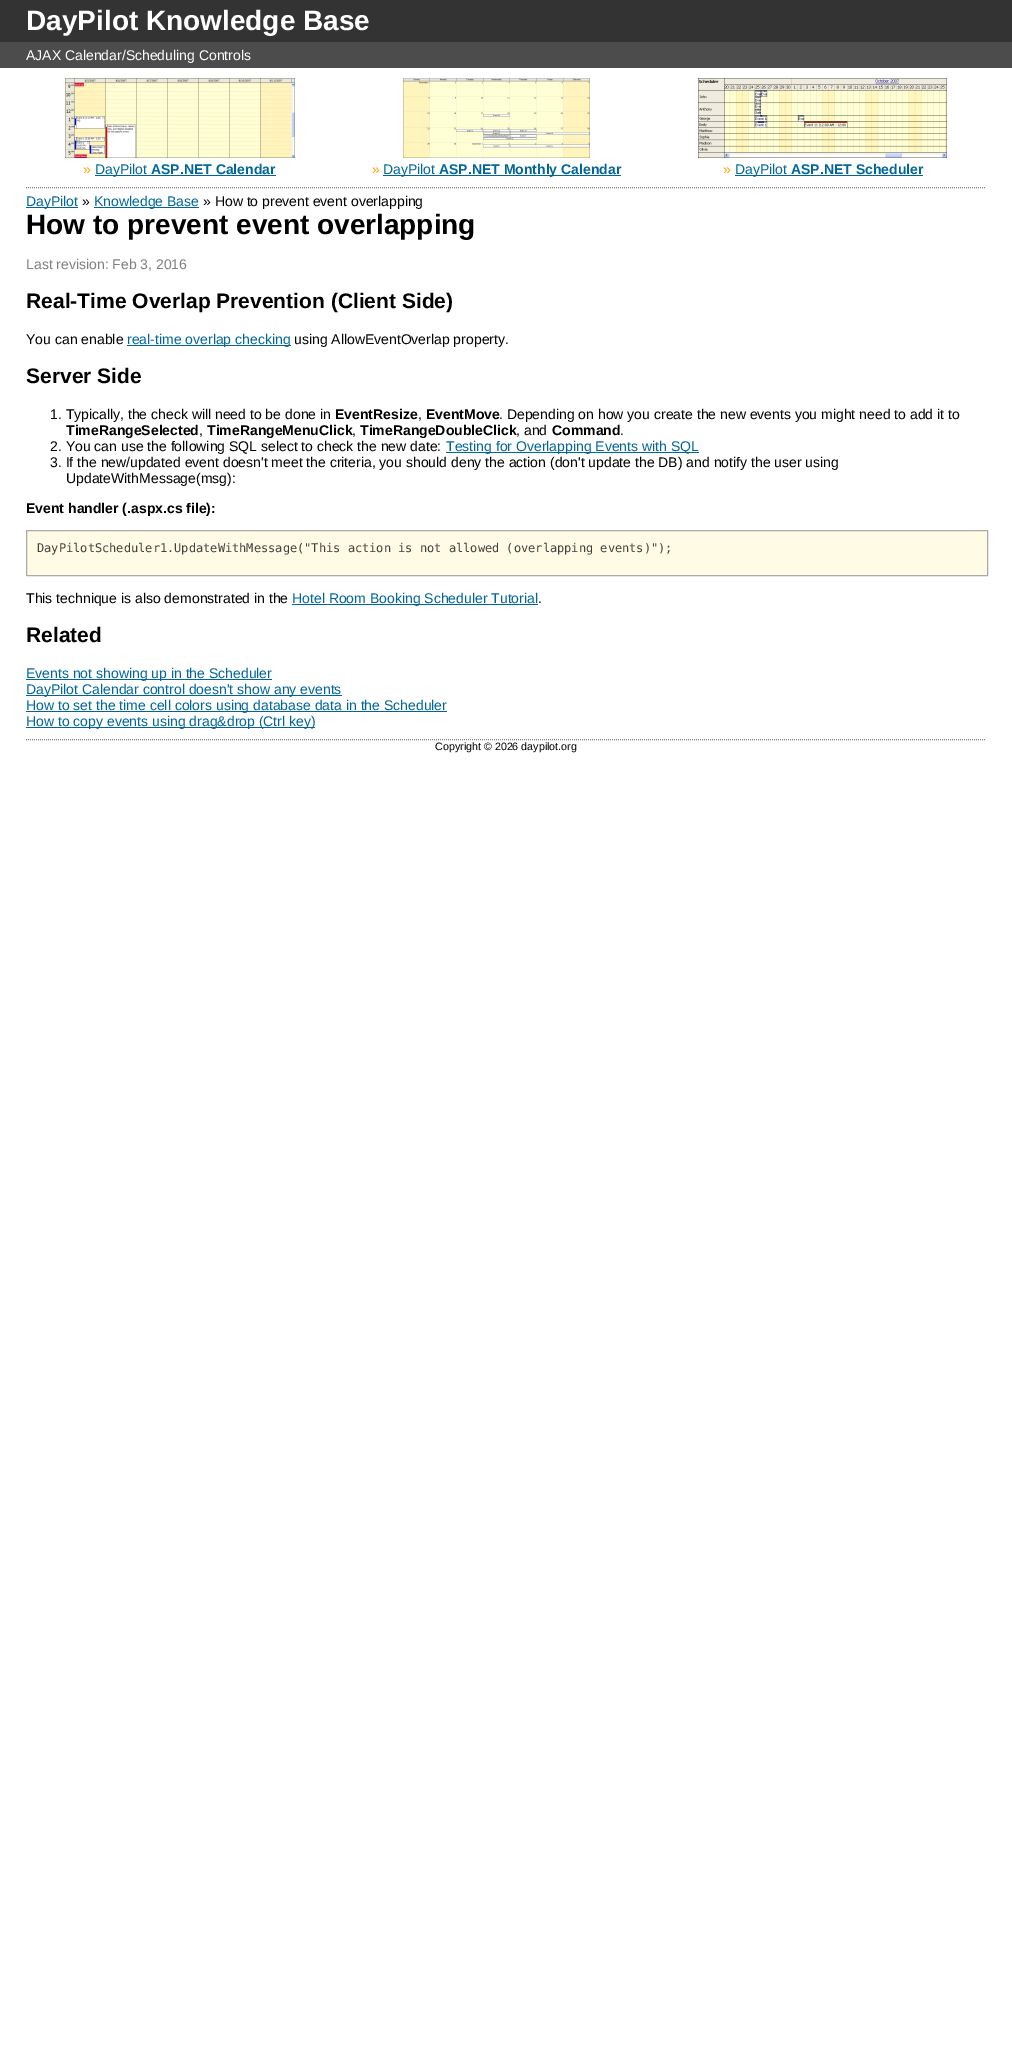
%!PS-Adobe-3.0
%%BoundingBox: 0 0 1012 2066
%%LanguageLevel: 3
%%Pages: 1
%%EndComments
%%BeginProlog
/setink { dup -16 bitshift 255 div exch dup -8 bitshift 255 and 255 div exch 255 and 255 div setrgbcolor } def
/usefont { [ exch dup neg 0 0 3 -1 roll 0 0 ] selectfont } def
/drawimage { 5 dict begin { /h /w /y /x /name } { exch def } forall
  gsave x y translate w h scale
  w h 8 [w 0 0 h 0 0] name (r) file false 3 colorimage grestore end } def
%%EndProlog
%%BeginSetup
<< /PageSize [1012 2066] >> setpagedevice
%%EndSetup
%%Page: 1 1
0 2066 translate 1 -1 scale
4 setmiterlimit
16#FFFFFF setink
0 0 1012 2066 rectfill
16#333333 setink
0 0 1012 42 rectfill
/LiberationSans-Bold 28 usefont
16#FFFFFF setink
26 30 moveto (DayPilot Knowledge Base) show
16#4C4C4C setink
0 42 1012 26 rectfill
/LiberationSans-Regular 14 usefont
16#FFFFFF setink
26 60 moveto (AJAX Calendar/Scheduling Controls) show
16#808080 setink
[1 1] 0 setdash
26 187.5 moveto 986 187.5 lineto stroke
(img1.raw) 65 78 230 80 drawimage
16#FFA500 setink
83 174 moveto (») show
16#006699 setink
95 175 181 1 rectfill
95 174 moveto (DayPilot) show
/LiberationSans-Bold 14 usefont
151 174 moveto (ASP.NET Calendar) show
(img2.raw) 403 78 187 80 drawimage
/LiberationSans-Regular 14 usefont
16#FFA500 setink
372 174 moveto (») show
16#006699 setink
383 175 238 1 rectfill
383 174 moveto (DayPilot) show
/LiberationSans-Bold 14 usefont
439 174 moveto (ASP.NET Monthly Calendar) show
(img3.raw) 698 78 249 80 drawimage
/LiberationSans-Regular 14 usefont
16#FFA500 setink
723 174 moveto (») show
16#006699 setink
735 175 188 1 rectfill
735 174 moveto (DayPilot) show
/LiberationSans-Bold 14 usefont
791 174 moveto (ASP.NET Scheduler) show
26 207 52 1 rectfill
/LiberationSans-Regular 14 usefont
26 206 moveto (DayPilot) show
16#000000 setink
82 206 moveto (») show
16#006699 setink
94 207 105 1 rectfill
94 206 moveto (Knowledge Base) show
16#000000 setink
203 206 moveto (» How to prevent event overlapping) show
/LiberationSans-Bold 28 usefont
26 234 moveto (How to prevent event overlapping) show
/LiberationSans-Regular 14 usefont
16#808080 setink
26 269 moveto (Last revision: Feb 3, 2016) show
/LiberationSans-Bold 21 usefont
16#000000 setink
26 308 moveto (Real-Time Overlap Prevention \(Client Side\)) show
/LiberationSans-Regular 14 usefont
26 344 moveto (You can enable) show
16#006699 setink
127 345 164 1 rectfill
127 344 moveto (real-time overlap checking) show
16#000000 setink
294 344 moveto (using AllowEventOverlap property.) show
/LiberationSans-Bold 21 usefont
26 383 moveto (Server Side) show
/LiberationSans-Regular 14 usefont
50 419 moveto (1. Typically, the check will need to be done in) show
/LiberationSans-Bold 14 usefont
335 419 moveto (EventResize) show
/LiberationSans-Regular 14 usefont
418 419 moveto (,) show
/LiberationSans-Bold 14 usefont
426 419 moveto (EventMove) show
/LiberationSans-Regular 14 usefont
499 419 moveto (. Depending on how you create the new events you might need to add it to) show
/LiberationSans-Bold 14 usefont
66 435 moveto (TimeRangeSelected) show
/LiberationSans-Regular 14 usefont
199 435 moveto (,) show
/LiberationSans-Bold 14 usefont
207 435 moveto (TimeRangeMenuClick) show
/LiberationSans-Regular 14 usefont
352 435 moveto (,) show
/LiberationSans-Bold 14 usefont
360 435 moveto (TimeRangeDoubleClick) show
/LiberationSans-Regular 14 usefont
516 435 moveto (, and) show
/LiberationSans-Bold 14 usefont
552 435 moveto (Command) show
/LiberationSans-Regular 14 usefont
620 435 moveto (.) show
50 451 moveto (2. You can use the following SQL select to check the new date:) show
16#006699 setink
446 452 253 1 rectfill
446 451 moveto (Testing for Overlapping Events with SQL) show
16#000000 setink
50 467 moveto (3. If the new/updated event doesn't meet the criteria, you should deny the action \(don't update the DB\) and notify the user using) show
66 483 moveto (UpdateWithMessage\(msg\):) show
/LiberationSans-Bold 14 usefont
26 513 moveto (Event handler \(.aspx.cs file\):) show
16#FFFBE5 setink
26.5 530.5 moveto 987.5 530.5 lineto 987.5 575.5 lineto 26.5 575.5 lineto closepath gsave fill grestore
16#A9A9A9 setink
[] 0 setdash
stroke
/DejaVuSansMono-Regular 12 usefont
16#404040 setink
37 552 moveto (DayPilotScheduler1.UpdateWithMessage\("This action is not allowed \(overlapping events\)"\);) show
/LiberationSans-Regular 14 usefont
16#000000 setink
26 603 moveto (This technique is also demonstrated in the) show
16#006699 setink
292 604 246 1 rectfill
292 603 moveto (Hotel Room Booking Scheduler Tutorial) show
16#000000 setink
538 603 moveto (.) show
/LiberationSans-Bold 21 usefont
26 642 moveto (Related) show
16#006699 setink
26 679 246 1 rectfill
/LiberationSans-Regular 14 usefont
26 678 moveto (Events not showing up in the Scheduler) show
26 695 316 1 rectfill
26 694 moveto (DayPilot Calendar control doesn't show any events) show
26 711 421 1 rectfill
26 710 moveto (How to set the time cell colors using database data in the Scheduler) show
26 727 289 1 rectfill
26 726 moveto (How to copy events using drag&drop \(Ctrl key\)) show
16#808080 setink
[1 1] 0 setdash
26 739.5 moveto 986 739.5 lineto stroke
/LiberationSans-Regular 10.7 usefont
16#000000 setink
435 750 moveto (Copyright © 2026 daypilot.org) show
showpage
%%EOF
